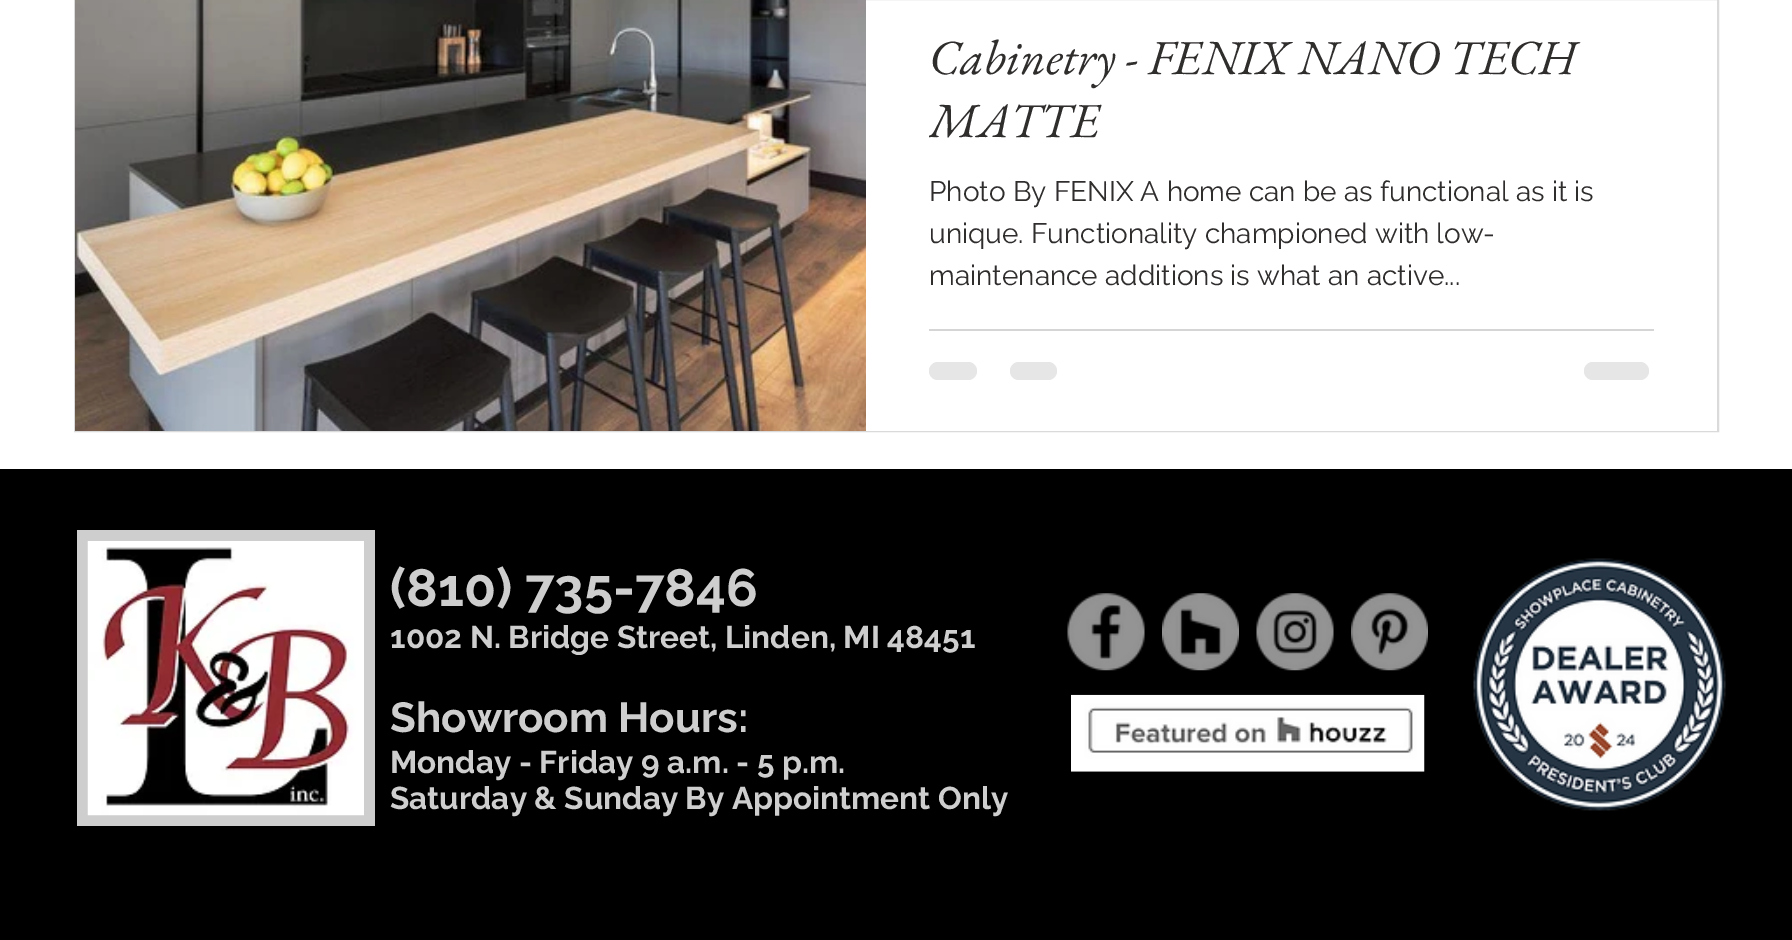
%!PS-Adobe-3.0
%%BoundingBox: 0 0 1792 940
%%LanguageLevel: 3
%%Pages: 1
%%EndComments
%%BeginProlog
/setink { dup -16 bitshift 255 div exch dup -8 bitshift 255 and 255 div exch 255 and 255 div setrgbcolor } def
/usefont { [ exch dup neg 0 0 3 -1 roll 0 0 ] selectfont } def
/rrect { 5 dict begin { /r /h /w /y /x } { exch def } forall
  x r add y moveto x w add y 2 copy h add r arct x w add y h add x 1 index r arct
  x y h add x y r arct x y 2 copy exch w add exch r arct closepath end } def
/drawimage { 5 dict begin { /h /w /y /x /name } { exch def } forall
  gsave x y translate w h scale
  w h 8 [w 0 0 h 0 0] name (r) file false 3 colorimage grestore end } def
%%EndProlog
%%BeginSetup
<< /PageSize [1792 940] >> setpagedevice
%%EndSetup
%%Page: 1 1
0 940 translate 1 -1 scale
4 setmiterlimit
16#FFFFFF setink
0 0 1792 940 rectfill
16#DADADA setink
2 setlinewidth
75 -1 1643 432 rectstroke
(img1.raw) 75 0 791 431 drawimage
16#FFFFFF setink
866 430 851 1 rectfill
/EBGaramond-Italic 49 usefont
16#302D2D setink
929 74 moveto (Cabinetry - FENIX NANO TECH) show
gsave
929 0 725 151 rectclip
929 137 moveto (MATTE) show
grestore
/Raleway-Regular 28 usefont
[
    [(Photo By FENIX A home can be as functional as it is) 929 201]
    [(unique. Functionality championed with low-) 929 243]
    [(maintenance additions is what an active...) 929 285]
] { aload pop moveto show } forall
16#D6D5D5 setink
929 329 725 2 rectfill
16#E6E6E6 setink
929 362 48 18 9 rrect fill
1010 362 47 18 9 rrect fill
1584 362 65 18 9 rrect fill
16#000000 setink
0 469 1792 471 rectfill
16#CECECE setink
77 530 298 296 rectfill
(img2.raw) 87 541 277 275 drawimage
/Raleway-Bold 52.5 usefont
390 606 moveto (\(810\) 735-7846) show
/Raleway-Bold 31.5 usefont
390 648 moveto (1002 N. Bridge Street, Linden, MI 48451) show
/Raleway-Bold 42 usefont
390 732 moveto (Showroom Hours:) show
/Raleway-Bold 31.5 usefont
390 773 moveto (Monday - Friday 9 a.m. - 5 p.m.) show
390 809 moveto (Saturday & Sunday By Appointment Only) show
(img3.raw) 1067 593 78 78 drawimage
(img4.raw) 1162 593 77 78 drawimage
(img5.raw) 1256 593 78 78 drawimage
(img6.raw) 1351 593 77 78 drawimage
(img7.raw) 1473 558 253 253 drawimage
(img8.raw) 1071 694 354 78 drawimage
showpage
%%EOF
